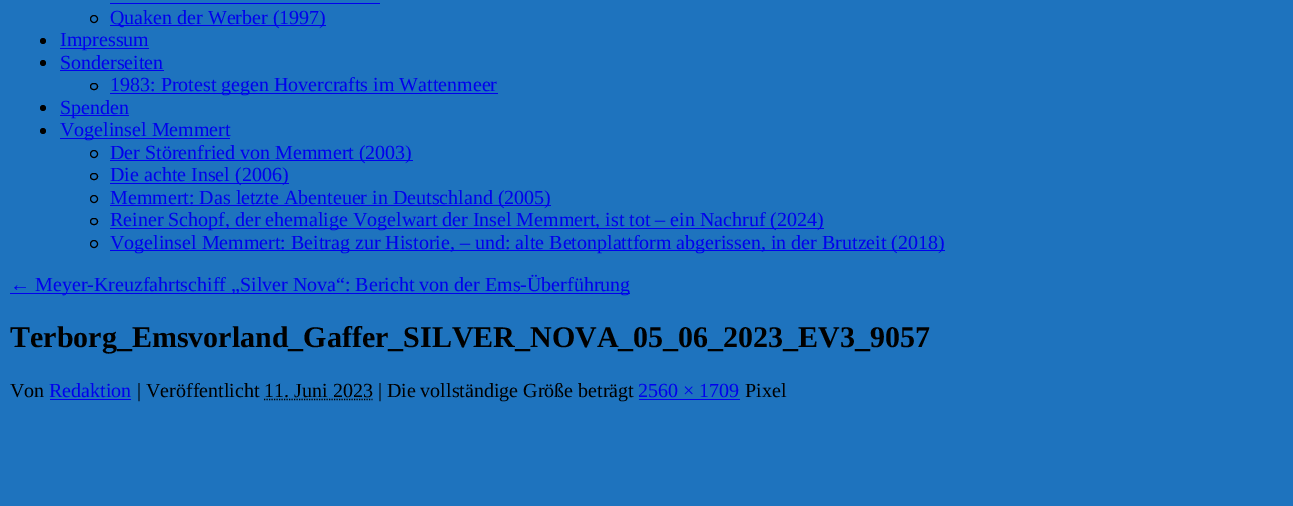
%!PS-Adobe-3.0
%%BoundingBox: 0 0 1293 506
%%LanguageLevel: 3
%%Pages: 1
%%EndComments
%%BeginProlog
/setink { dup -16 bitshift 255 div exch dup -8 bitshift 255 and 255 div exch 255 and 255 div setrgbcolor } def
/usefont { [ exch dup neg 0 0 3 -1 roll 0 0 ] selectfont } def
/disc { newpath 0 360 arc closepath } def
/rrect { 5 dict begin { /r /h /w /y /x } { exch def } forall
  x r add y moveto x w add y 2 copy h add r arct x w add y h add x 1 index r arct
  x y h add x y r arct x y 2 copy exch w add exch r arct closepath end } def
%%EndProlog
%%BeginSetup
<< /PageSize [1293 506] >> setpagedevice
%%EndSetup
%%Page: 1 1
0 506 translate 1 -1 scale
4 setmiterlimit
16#1E73BE setink
0 0 1293 506 rectfill
16#0000EE setink
110 3 270 1 rectfill
16#000000 setink
94 19 3.5 disc stroke
16#0000EE setink
110 25 216 1 rectfill
/LiberationSerif-Regular 20 usefont
110 24 moveto (Quaken der Werber \(1997\)) show
16#000000 setink
43 41 3 disc fill
16#0000EE setink
60 48 89 1 rectfill
60 46 moveto (Impressum) show
16#000000 setink
43 63 3 disc fill
16#0000EE setink
60 69 moveto (Sonderseiten) show
60 70 104 1 rectfill
16#000000 setink
90.5 83.5 7 6 3 rrect stroke
16#0000EE setink
110 93 388 1 rectfill
110 91 moveto (1983: Protest gegen Hovercrafts im Wattenmeer) show
16#000000 setink
43 108 3 disc fill
16#0000EE setink
60 115 69 1 rectfill
60 114 moveto (Spenden) show
16#000000 setink
43 131 3 disc fill
16#0000EE setink
60 138 170 1 rectfill
60 136 moveto (Vogelinsel Memmert) show
16#000000 setink
94 154 3.5 disc stroke
16#0000EE setink
110 160 303 1 rectfill
110 159 moveto (Der Störenfried von Memmert \(2003\)) show
16#000000 setink
90.5 173.5 7 6 3 rrect stroke
16#0000EE setink
110 183 179 1 rectfill
110 181 moveto (Die achte Insel \(2006\)) show
16#000000 setink
94 199 3.5 disc stroke
16#0000EE setink
110 205 441 1 rectfill
110 204 moveto (Memmert: Das letzte Abenteuer in Deutschland \(2005\)) show
16#000000 setink
90.5 218.5 7 6 3 rrect stroke
16#0000EE setink
110 228 714 1 rectfill
110 226 moveto (Reiner Schopf, der ehemalige Vogelwart der Insel Memmert, ist tot – ein Nachruf \(2024\)) show
16#000000 setink
94 244 3.5 disc stroke
16#0000EE setink
110 250 835 1 rectfill
110 249 moveto (Vogelinsel Memmert: Beitrag zur Historie, – und: alte Betonplattform abgerissen, in der Brutzeit \(2018\)) show
10 293 620 1 rectfill
10 291 moveto (← Meyer-Kreuzfahrtschiff „Silver Nova“: Bericht von der Ems-Überführung) show
/LiberationSerif-Bold 30 usefont
16#000000 setink
10 347 moveto (Terborg_Emsvorland_Gaffer_SILVER_NOVA_05_06_2023_EV3_9057) show
/LiberationSerif-Regular 20 usefont
10 397 moveto (Von) show
16#0000EE setink
49 397 moveto (Redaktion) show
50 399 81 1 rectfill
16#000000 setink
137 397 moveto (| Veröffentlicht 11. Juni 2023 | Die vollständige Größe beträgt) show
16#0000EE setink
638 397 moveto (2560 × 1709) show
639 399 101 1 rectfill
16#000000 setink
745 397 moveto (Pixel) show
1.2 setlinewidth
[1.25 1.25] 0 setdash
264 399.5 moveto 372.5 399.5 lineto stroke
showpage
%%EOF
